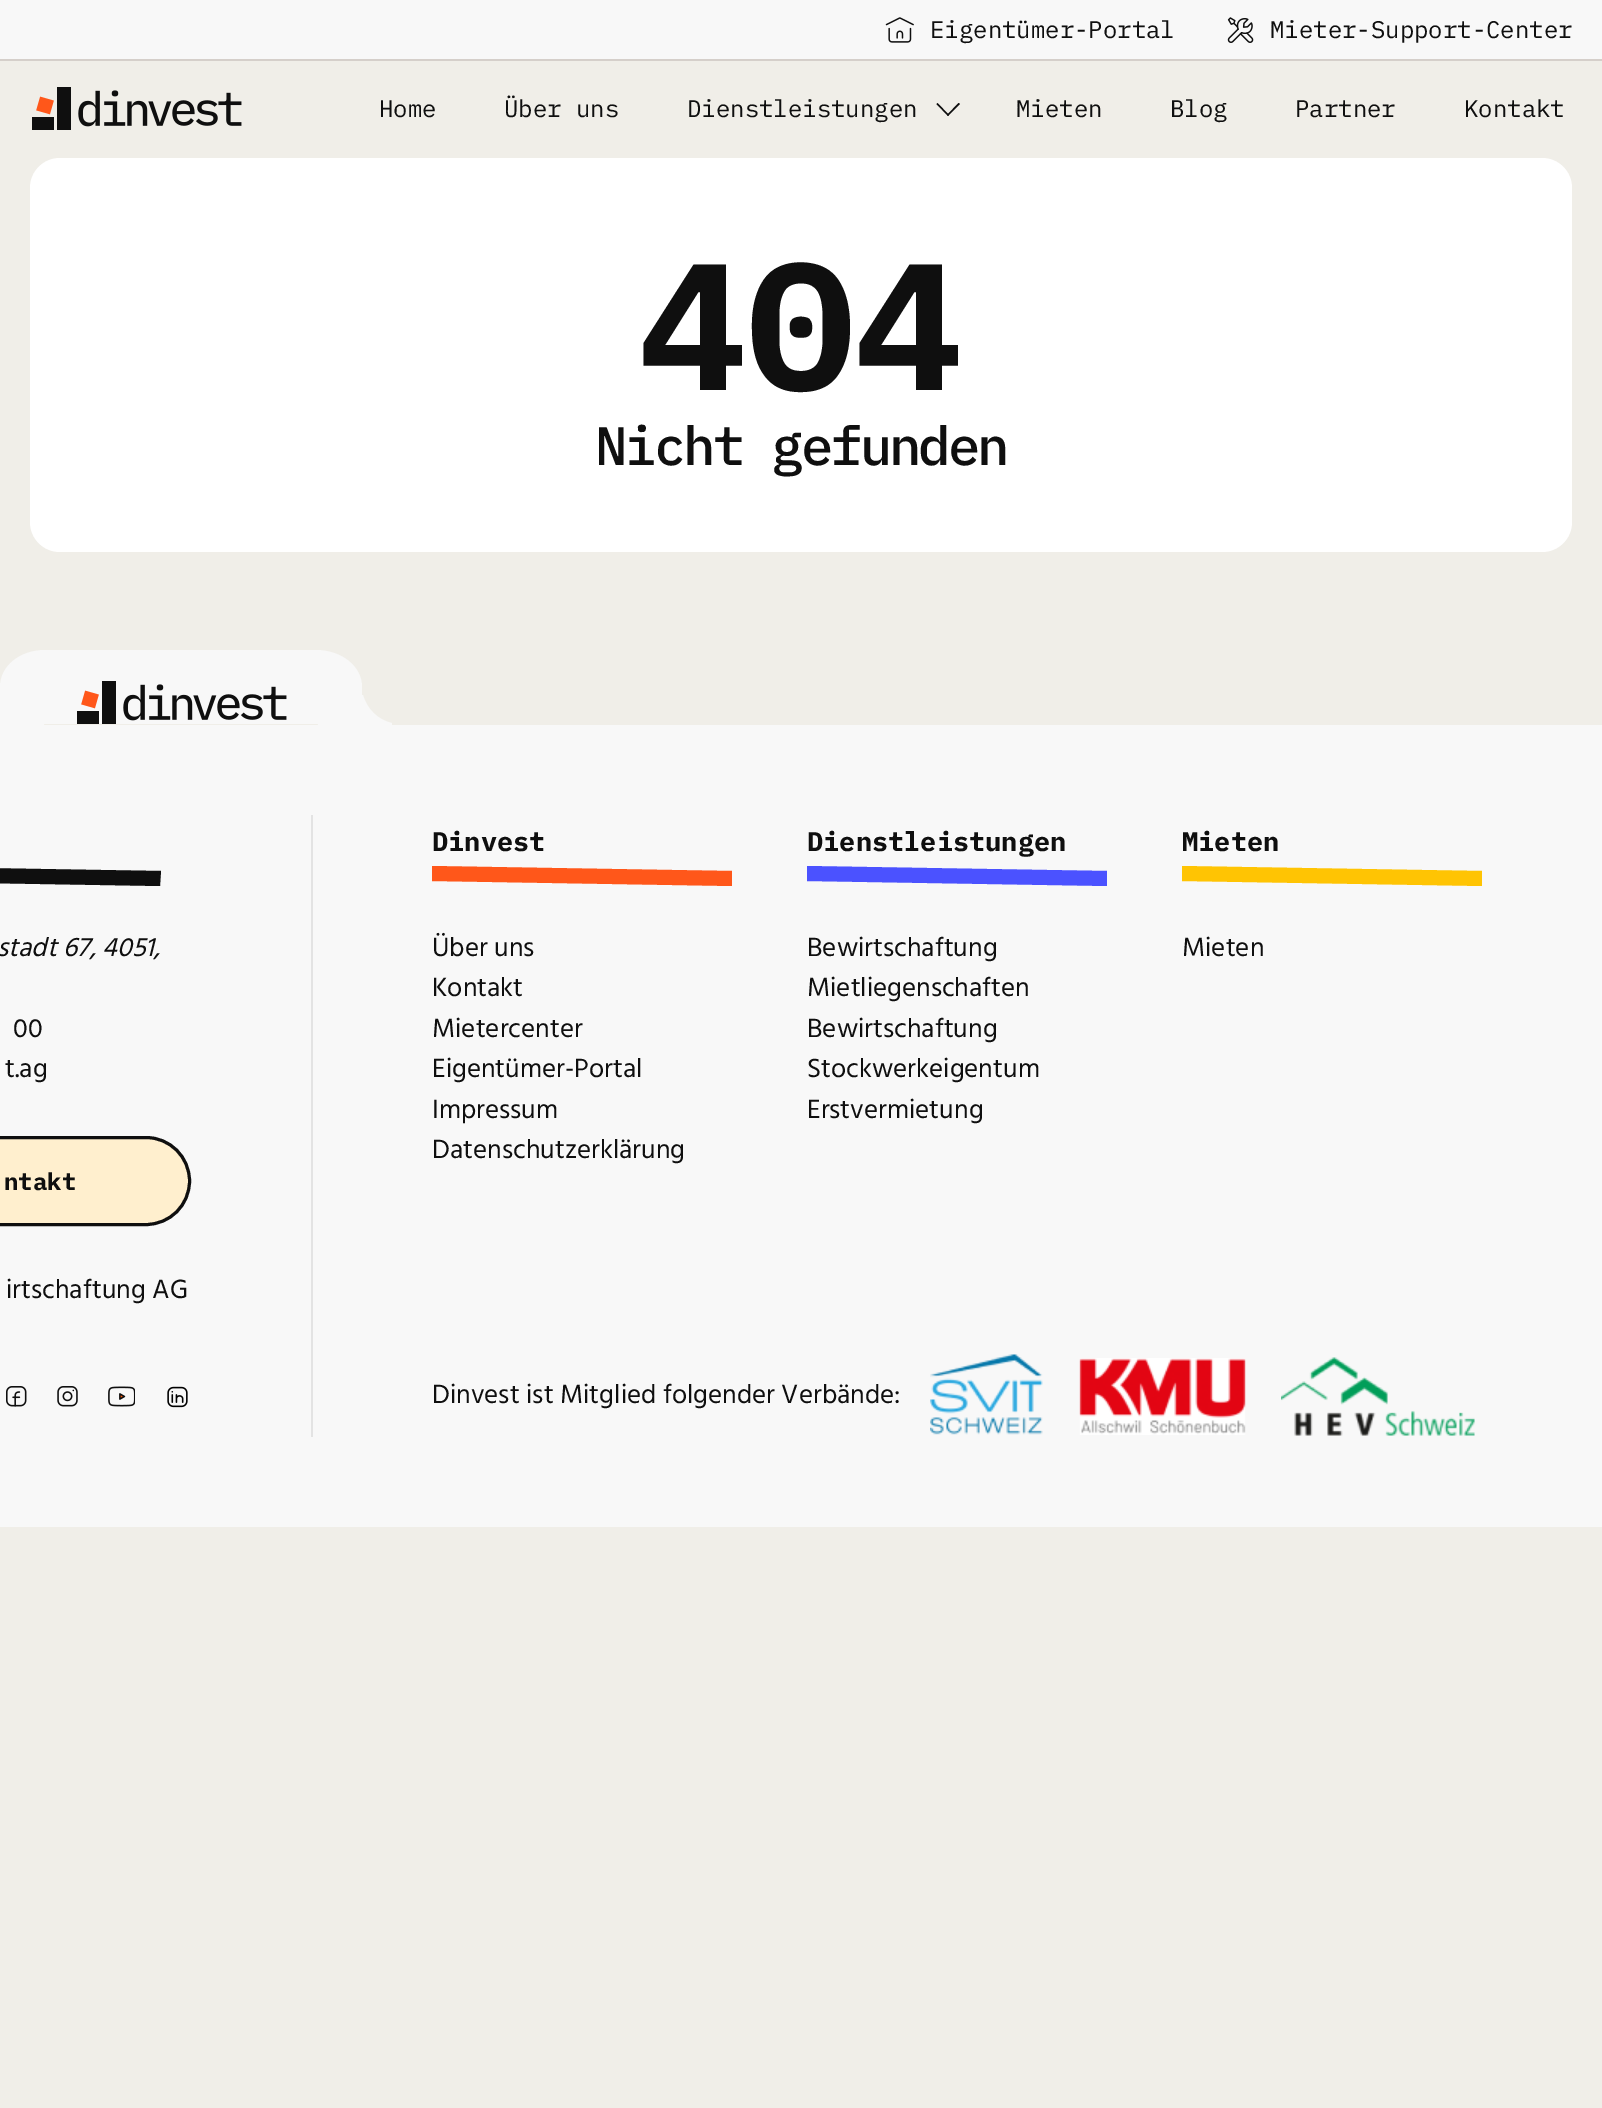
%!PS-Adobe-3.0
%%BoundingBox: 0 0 1602 2108
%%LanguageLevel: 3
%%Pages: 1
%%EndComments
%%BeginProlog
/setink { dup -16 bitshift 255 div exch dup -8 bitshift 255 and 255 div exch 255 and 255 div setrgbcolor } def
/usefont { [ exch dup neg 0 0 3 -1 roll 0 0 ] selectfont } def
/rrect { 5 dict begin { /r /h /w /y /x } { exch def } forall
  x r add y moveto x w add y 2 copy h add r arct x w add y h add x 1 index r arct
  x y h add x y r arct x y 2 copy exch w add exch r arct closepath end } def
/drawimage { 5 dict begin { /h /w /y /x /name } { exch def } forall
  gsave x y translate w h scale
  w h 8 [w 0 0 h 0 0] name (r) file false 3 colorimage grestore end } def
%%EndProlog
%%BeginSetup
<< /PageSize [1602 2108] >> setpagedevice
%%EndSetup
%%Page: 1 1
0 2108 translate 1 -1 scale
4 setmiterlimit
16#F0EEE8 setink
0 0 1602 2108 rectfill
16#F8F8F8 setink
0 0 1602 59 rectfill
16#D5CFCA setink
0 59 1602 2 rectfill
(img1.raw) 885 17 29 26 drawimage
/IBMPlexMono-Regular 24 usefont
16#0F0F0F setink
930 38 moveto (Eigentümer-Portal) show
(img2.raw) 1227 17 27 26 drawimage
1270 38 moveto (Mieter-Support-Center) show
(img3.raw) 32 87 210 43 drawimage
[
    [(Home) 379 117]
    [(Über uns) 504 117]
    [(Dienstleistungen) 687 117]
] { aload pop moveto show } forall
958.5 103 moveto 960 104 lineto 948 116 lineto 947 115 lineto closepath fill
937.5 103 moveto 949 115 lineto 948 116 lineto 936.5 104 lineto closepath fill
[
    [(Mieten) 1016 117]
    [(Blog) 1170 117]
    [(Partner) 1295 117]
    [(Kontakt) 1464 117]
] { aload pop moveto show } forall
16#FFFFFF setink
30 158 1542 394 30 rrect fill
/IBMPlexMono-Bold 180 usefont
16#0F0F0F setink
639 390 moveto (404) show
/IBMPlexMono-Medium 54 usefont
595 465 moveto -3 0 (Nicht gefunden) ashow
16#F8F8F8 setink
45 650 moveto 316 650 lineto 341 650 362 666 362 687 curveto 362 724 lineto 0 724 lineto 0 687 lineto 0 666 20 650 45 650 curveto closepath fill
-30 723 moveto -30 770 lineto -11 770 lineto 20 770 45 745 45 714 curveto 45 695 lineto -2 695 lineto -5 709 -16 719 -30 723 curveto closepath fill
(img4.raw) 77 681 210 43 drawimage
317 695 moveto 317 714 lineto 317 745 342 770 373 770 curveto 392 770 lineto 392 723 lineto 378 720 367 709 363 695 curveto closepath fill
0 725 1602 802 rectfill
16#0F0F0F setink
-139 866 moveto 161 871 lineto 160 886 lineto -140 881 lineto closepath fill
/Hind-Italic 27 usefont
-3 956 moveto (stadt 67, 4051,) show
/Hind-Regular 27 usefont
13 1037 moveto (00) show
5 1077 moveto (t.ag) show
16#FFEFCE setink
-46.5 1137.5 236 87 43.5 rrect gsave fill grestore
16#0F0F0F setink
3 setlinewidth
stroke
/IBMPlexMono-Bold 24 usefont
4 1190 moveto (ntakt) show
/Hind-Regular 27 usefont
6 1298 moveto (irtschaftung AG) show
(img5.raw) 6 1386 21 21 drawimage
(img6.raw) 57 1386 21 21 drawimage
(img7.raw) 108 1386 27 21 drawimage
(img8.raw) 167 1386 21 22 drawimage
16#E3E3E3 setink
311 815 2 622 rectfill
/IBMPlexMono-Bold 27 usefont
16#0F0F0F setink
432 851 moveto (Dinvest) show
16#FF571A setink
432 866 moveto 732 871 lineto 732 886 lineto 432 881 lineto closepath fill
/Hind-Regular 27 usefont
16#0F0F0F setink
[
    [(Über uns) 432 956]
    [(Kontakt) 432 996]
    [(Mietercenter) 432 1037]
    [(Eigentümer-Portal) 432 1077]
    [(Impressum) 432 1118]
    [(Datenschutzerklärung) 432 1158]
] { aload pop moveto show } forall
/IBMPlexMono-Bold 27 usefont
807 851 moveto (Dienstleistungen) show
16#4B52FF setink
807 866 moveto 1107 871 lineto 1107 886 lineto 807 881 lineto closepath fill
/Hind-Regular 27 usefont
16#0F0F0F setink
[
    [(Bewirtschaftung) 807 956]
    [(Mietliegenschaften) 807 996]
    [(Bewirtschaftung) 807 1037]
    [(Stockwerkeigentum) 807 1077]
    [(Erstvermietung) 807 1118]
] { aload pop moveto show } forall
/IBMPlexMono-Bold 27 usefont
1182 851 moveto (Mieten) show
16#FFC403 setink
1182 866 moveto 1482 871 lineto 1482 886 lineto 1182 881 lineto closepath fill
/Hind-Regular 27 usefont
16#0F0F0F setink
1182 956 moveto (Mieten) show
432 1403 moveto (Dinvest ist Mitglied folgender Verbände:) show
(img9.raw) 930 1354 113 81 drawimage
(img10.raw) 1079 1358 167 77 drawimage
(img11.raw) 1281 1357 194 79 drawimage
showpage
%%EOF
